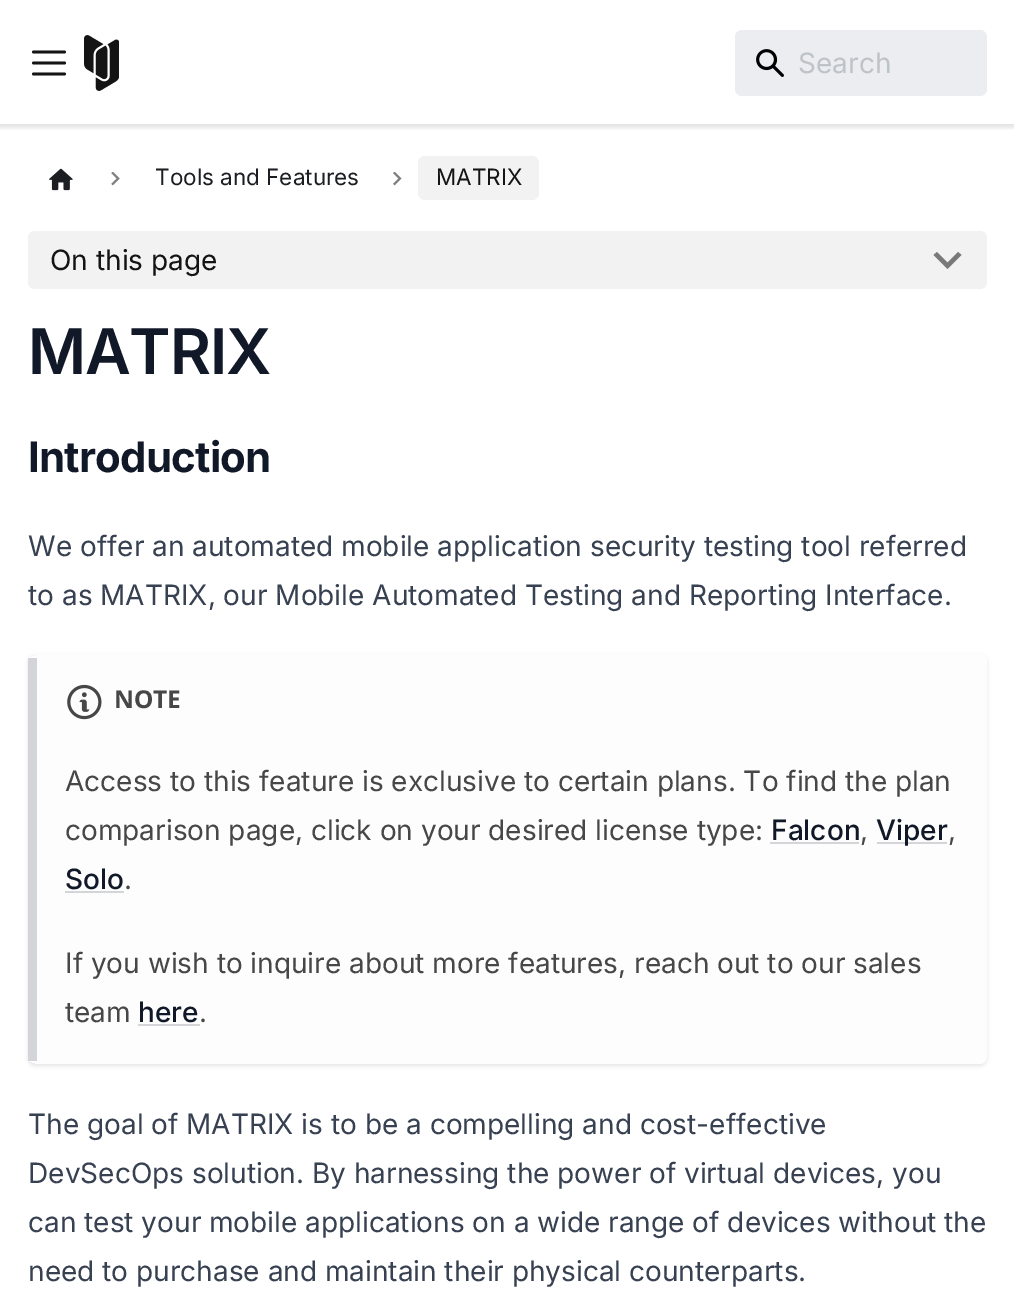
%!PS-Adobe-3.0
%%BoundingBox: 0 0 1014 1307
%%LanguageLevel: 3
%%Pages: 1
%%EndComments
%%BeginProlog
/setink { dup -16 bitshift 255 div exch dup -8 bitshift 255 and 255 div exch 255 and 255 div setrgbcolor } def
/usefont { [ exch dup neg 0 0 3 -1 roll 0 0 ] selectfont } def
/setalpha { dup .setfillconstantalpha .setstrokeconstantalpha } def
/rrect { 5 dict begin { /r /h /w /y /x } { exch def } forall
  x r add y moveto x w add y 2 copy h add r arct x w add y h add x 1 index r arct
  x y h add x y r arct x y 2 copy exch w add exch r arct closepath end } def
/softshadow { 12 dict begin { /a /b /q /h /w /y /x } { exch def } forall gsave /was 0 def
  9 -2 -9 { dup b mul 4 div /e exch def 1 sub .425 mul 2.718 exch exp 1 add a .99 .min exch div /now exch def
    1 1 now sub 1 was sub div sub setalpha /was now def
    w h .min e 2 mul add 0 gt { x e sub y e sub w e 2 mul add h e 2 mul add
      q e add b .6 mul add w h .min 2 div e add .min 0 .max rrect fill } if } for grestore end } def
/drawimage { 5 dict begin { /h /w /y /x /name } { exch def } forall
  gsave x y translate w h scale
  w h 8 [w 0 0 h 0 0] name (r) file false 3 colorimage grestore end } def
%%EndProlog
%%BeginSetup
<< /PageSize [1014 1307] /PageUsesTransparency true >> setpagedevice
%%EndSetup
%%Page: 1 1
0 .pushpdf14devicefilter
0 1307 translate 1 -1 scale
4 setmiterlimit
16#FFFFFF setink
0 0 1014 1307 rectfill
gsave
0 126 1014 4 rectclip
16#000000 setink
0 2 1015 126 0 2 0.1 softshadow
grestore
16#E6E6E6 setink
0 124 1014 2 rectfill
16#141414 setink
2.8 setlinewidth
1 setlinecap
33.5 52 moveto 64.5 52 lineto 33.5 63 moveto 64.5 63 lineto 33.5 74 moveto 64.5 74 lineto stroke
(img1.raw) 84 35 35 56 drawimage
16#EBEDF0 setink
735 30 252 66 7 rrect fill
(img2.raw) 756 49 28 28 drawimage
/Inter-Regular 28 usefont
16#BEC3C9 setink
798 73 moveto (Search) show
(img3.raw) 49 168 24 23 drawimage
(img4.raw) 111 172 9 14 drawimage
/Inter-Regular 22.5 usefont
16#1C1E21 setink
155 185 moveto (Tools and Features) show
(img5.raw) 393 172 9 14 drawimage
16#F2F2F2 setink
418 156 121 44 7 rrect fill
16#141414 setink
436 185 moveto (MATRIX) show
16#F2F2F2 setink
28 231 959 58 7 rrect fill
/Inter-Regular 28 usefont
16#141414 setink
50 270 moveto (On this page) show
16#797979 setink
958 252 moveto 947.5 262.5 lineto 937 252 lineto 933.5 255 lineto 947.5 269 lineto 961.5 255 lineto closepath fill
/Inter-SemiBold 63 usefont
16#111827 setink
28 374 moveto -1.25 0 (MATRIX) ashow
/Inter-Bold 42 usefont
28 472 moveto -0.8 0 (Introduction) ashow
/Inter-Regular 28 usefont
16#374151 setink
28 556 moveto (We offer an automated mobile application security testing tool referred) show
28 605 moveto (to as MATRIX, our Mobile Automated Testing and Reporting Interface.) show
gsave
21 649 moveto 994 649 lineto 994 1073 lineto 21 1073 lineto closepath 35 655 moveto 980 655 lineto 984 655 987 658 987 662 curveto 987 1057 lineto 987 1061 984 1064 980 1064 curveto 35 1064 lineto 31 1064 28 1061 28 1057 curveto 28 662 lineto 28 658 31 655 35 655 curveto closepath eoclip newpath
16#000000 setink
28 656 959 410 7 2 0.1 softshadow
grestore
16#FDFDFE setink
37 654 moveto 980 654 lineto 984 654 987 658 987 662 curveto 987 1057 lineto 987 1061 984 1064 980 1064 curveto 37 1064 lineto closepath fill
16#D4D5D8 setink
28 658 9 403 rectfill
(img6.raw) 67 684 35 36 drawimage
/NotoSans-Bold 24.5 usefont
16#474748 setink
114 708 moveto (NOTE) show
/Inter-Regular 28 usefont
65 791 moveto (Access to this feature is exclusive to certain plans. To find the plan) show
65 840 moveto (comparison page, click on your desired license type:) show
/Inter-Medium 28 usefont
16#111827 setink
771 840 moveto (Falcon) show
16#D4D5D8 setink
770 842 89 2 rectfill
/Inter-Regular 28 usefont
16#474748 setink
860 840 moveto (,) show
16#D4D5D8 setink
877 842 70 2 rectfill
/Inter-Medium 28 usefont
16#111827 setink
876 840 moveto (Viper) show
/Inter-Regular 28 usefont
16#474748 setink
948 840 moveto (,) show
/Inter-Medium 28 usefont
16#111827 setink
65 889 moveto (Solo) show
16#D4D5D8 setink
65 891 59 2 rectfill
/Inter-Regular 28 usefont
16#474748 setink
[
    [(.) 124 889]
    [(If you wish to inquire about more features, reach out to our sales) 65 973]
    [(team) 65 1022]
] { aload pop moveto show } forall
/Inter-Medium 28 usefont
16#111827 setink
138 1022 moveto (here) show
16#D4D5D8 setink
138 1024 62 2 rectfill
/Inter-Regular 28 usefont
16#474748 setink
199 1022 moveto (.) show
16#374151 setink
[
    [(The goal of MATRIX is to be a compelling and cost-effective) 28 1134]
    [(DevSecOps solution. By harnessing the power of virtual devices, you) 28 1183]
    [(can test your mobile applications on a wide range of devices without the) 28 1232]
    [(need to purchase and maintain their physical counterparts.) 28 1281]
] { aload pop moveto show } forall
.poppdf14devicefilter showpage
%%EOF
